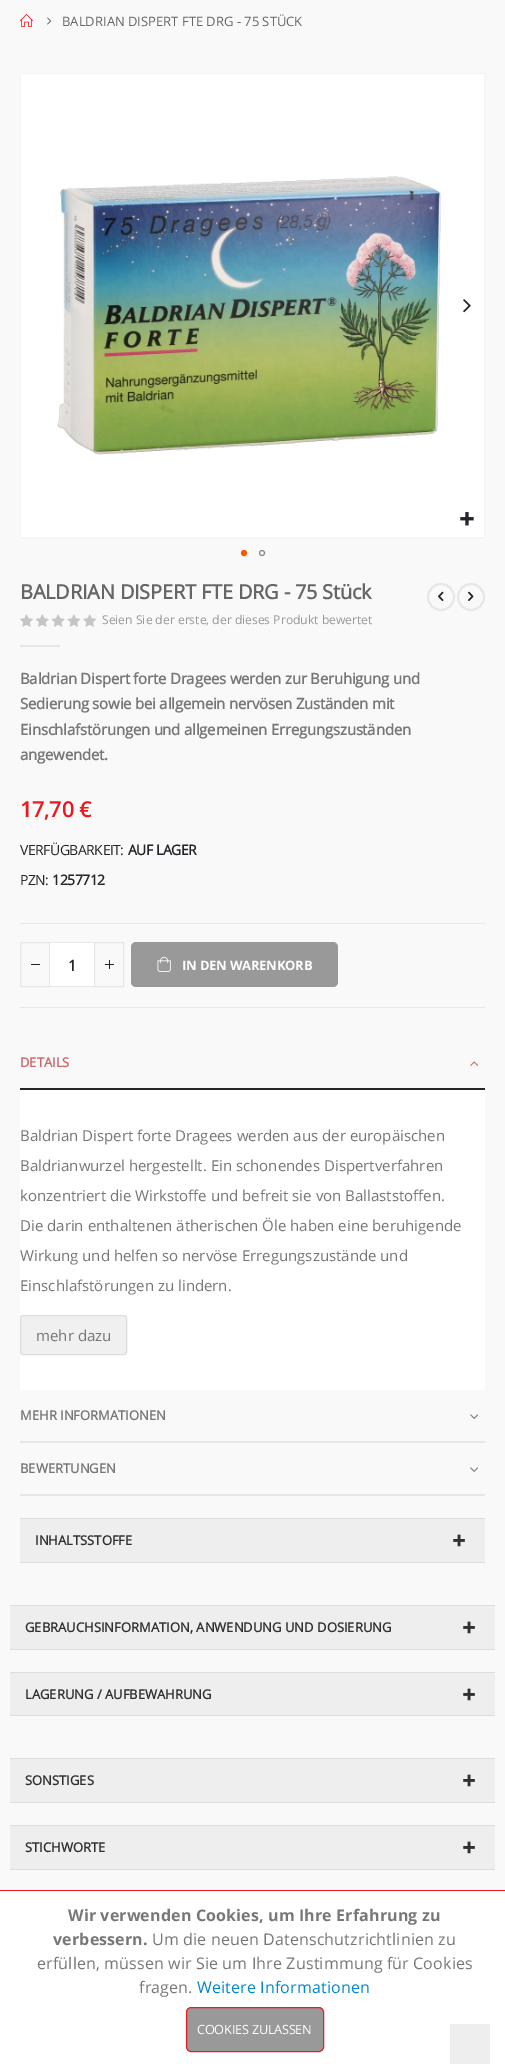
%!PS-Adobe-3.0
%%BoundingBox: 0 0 505 2064
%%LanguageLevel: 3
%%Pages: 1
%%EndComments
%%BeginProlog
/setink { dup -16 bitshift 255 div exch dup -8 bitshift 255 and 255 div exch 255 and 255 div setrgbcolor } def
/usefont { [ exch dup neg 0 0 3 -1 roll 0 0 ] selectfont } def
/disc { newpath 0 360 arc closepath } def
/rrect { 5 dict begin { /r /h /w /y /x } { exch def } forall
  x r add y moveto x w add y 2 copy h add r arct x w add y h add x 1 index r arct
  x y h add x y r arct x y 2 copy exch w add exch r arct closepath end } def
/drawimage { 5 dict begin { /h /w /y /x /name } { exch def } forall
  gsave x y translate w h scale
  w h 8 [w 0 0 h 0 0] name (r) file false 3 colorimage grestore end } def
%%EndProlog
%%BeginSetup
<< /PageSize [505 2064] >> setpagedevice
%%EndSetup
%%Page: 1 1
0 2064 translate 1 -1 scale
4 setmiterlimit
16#F9F9F9 setink
0 0 505 2064 rectfill
(img1.raw) 20 14 13 13 drawimage
(img2.raw) 47 17 5 8 drawimage
/OpenSans-Regular 13 usefont
16#666666 setink
62 26 moveto (BALDRIAN DISPERT FTE DRG - 75 STÜCK) show
16#F4F4F4 setink
20.5 73.5 464 464 rectstroke
16#FFFFFF setink
21 74 463 463 rectfill
(img3.raw) 57 176 384 279 drawimage
(img4.raw) 463 299 8 14 drawimage
(img5.raw) 460 512 14 14 drawimage
16#FF5501 setink
244 553 2.5 disc gsave fill grestore
stroke
16#858585 setink
262 553 2.5 disc stroke
/OpenSans-Bold 20 usefont
16#666666 setink
20 599 moveto -0.2 0 (BALDRIAN DISPERT FTE DRG - 75 Stück) ashow
16#E7E7E7 setink
2 setlinewidth
441 597 13 disc stroke
(img6.raw) 438 591 6 10 drawimage
471 597 13 disc stroke
(img7.raw) 468 591 6 10 drawimage
(img8.raw) 20 614 76 13 drawimage
/OpenSans-Regular 12.1 usefont
16#999999 setink
102 624 moveto (Seien Sie der erste, der dieses Produkt bewertet) show
16#E7E7E7 setink
20 645 40 2 rectfill
/OpenSans-Bold 15 usefont
16#777777 setink
20 684 moveto -0.23 0 (Baldrian Dispert forte Dragees werden zur Beruhigung und) ashow
20 709 moveto -0.23 0 (Sedierung sowie bei allgemein nervösen Zuständen mit) ashow
20 735 moveto -0.23 0 (Einschlafstörungen und allgemeinen Erregungszuständen) ashow
20 760 moveto -0.23 0 (angewendet.) ashow
/OpenSans-SemiBold 22 usefont
16#EE161F setink
20 817 moveto -0.5 0 (17,70 €) ashow
/OpenSans-Regular 14 usefont
16#222529 setink
20 855 moveto -0.5 0 (VERFÜGBARKEIT:) ashow
/OpenSans-Bold 14 usefont
128 855 moveto -0.5 0 (AUF LAGER) ashow
/OpenSans-Regular 14 usefont
20 885 moveto -0.5 0 (PZN:) ashow
/OpenSans-Bold 14 usefont
52 885 moveto -0.5 0 (1257712) ashow
16#E7E7E7 setink
20 923 465 1 rectfill
20 1007 465 1 rectfill
1 setlinewidth
20.5 942.5 29 44 rectstroke
16#222529 setink
31 964 9 1 rectfill
16#E7E7E7 setink
94.5 942.5 29 44 rectstroke
[
    [105 964 9 1 16#222529]
    [109 960 1 9 16#222529]
    [50 943 44 43 16#FFFFFF]
    [50 942 44 1 16#E7E7E7]
    [50 986 44 1 16#E7E7E7]
] { aload pop setink rectfill } forall
/OpenSans-Bold 15 usefont
16#222529 setink
68 971 moveto (1) show
16#999999 setink
131 942 207 45 5 rrect fill
(img9.raw) 157 956 14 16 drawimage
/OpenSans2-Bold 13 usefont
16#FFFFFF setink
182 970 moveto -0.2 0 (IN DEN WARENKORB) ashow
16#222529 setink
20 1088 465 2 rectfill
/OpenSans-Bold 13 usefont
16#CB676B setink
20 1067 moveto (DETAILS) show
(img10.raw) 470 1061 9 5 drawimage
16#FFFFFF setink
20 1090 465 300 rectfill
/OpenSans-Regular 15 usefont
16#777777 setink
[
    [(Baldrian Dispert forte Dragees werden aus der europäischen) 20 1141]
    [(Baldrianwurzel hergestellt. Ein schonendes Dispertverfahren) 20 1171]
    [(konzentriert die Wirkstoffe und befreit sie von Ballaststoffen.) 20 1201]
    [(Die darin enthaltenen ätherischen Öle haben eine beruhigende) 20 1231]
    [(Wirkung und helfen so nervöse Erregungszustände und) 20 1261]
    [(Einschlafstörungen zu lindern.) 20 1291]
] { aload pop moveto show } forall
16#F0F0F0 setink
20.5 1315.5 106 39 2.5 rrect gsave fill grestore
16#DDDDDD setink
stroke
16#777777 setink
36 1341 moveto (mehr dazu) show
16#E7E7E7 setink
20 1441 465 2 rectfill
/OpenSans-Bold 13 usefont
16#777777 setink
20 1420 moveto (MEHR INFORMATIONEN) show
(img11.raw) 470 1414 8 5 drawimage
16#E7E7E7 setink
20 1494 465 2 rectfill
16#777777 setink
20 1473 moveto (BEWERTUNGEN) show
(img11.raw) 470 1467 8 5 drawimage
[
    [20 1519 465 43 16#EEEEEE]
    [20 1518 465 1 16#DDDDDD]
    [20 1562 465 1 16#DDDDDD]
] { aload pop setink rectfill } forall
16#313131 setink
35 1545 moveto (INHALTSSTOFFE) show
(img12.raw) 453 1534 12 13 drawimage
[
    [10 1606 485 43 16#EEEEEE]
    [10 1605 485 1 16#DDDDDD]
    [10 1649 485 1 16#DDDDDD]
] { aload pop setink rectfill } forall
16#313131 setink
25 1632 moveto (GEBRAUCHSINFORMATION, ANWENDUNG UND DOSIERUNG) show
(img12.raw) 463 1621 12 13 drawimage
[
    [10 1673 485 42 16#EEEEEE]
    [10 1672 485 1 16#DDDDDD]
    [10 1715 485 1 16#DDDDDD]
] { aload pop setink rectfill } forall
16#313131 setink
25 1699 moveto (LAGERUNG / AUFBEWAHRUNG) show
(img12.raw) 463 1688 12 13 drawimage
[
    [10 1759 485 43 16#EEEEEE]
    [10 1758 485 1 16#DDDDDD]
    [10 1802 485 1 16#DDDDDD]
] { aload pop setink rectfill } forall
16#313131 setink
25 1785 moveto (SONSTIGES) show
(img12.raw) 463 1774 12 13 drawimage
[
    [10 1826 485 43 16#EEEEEE]
    [10 1825 485 1 16#DDDDDD]
    [10 1869 485 1 16#DDDDDD]
] { aload pop setink rectfill } forall
16#313131 setink
25 1852 moveto (STICHWORTE) show
(img12.raw) 463 1841 12 13 drawimage
[
    [0 1891 505 173 16#FFFFFF]
    [450 2024 40 40 16#EEEEEE]
    [0 1890 505 1 16#EE161F]
] { aload pop setink rectfill } forall
/OpenSans2-Bold 16 usefont
16#777777 setink
68 1921 moveto 0.15 0 (Wir verwenden Cookies, um Ihre Erfahrung zu) ashow
53 1945 moveto 0.15 0 (verbessern.) ashow
/OpenSans2-Regular 16 usefont
152 1945 moveto 0.15 0 (Um die neuen Datenschutzrichtlinien zu) ashow
37 1969 moveto 0.15 0 (erfüllen, müssen wir Sie um Ihre Zustimmung für Cookies) ashow
139 1993 moveto 0.15 0 (fragen.) ashow
16#0088CC setink
197 1993 moveto 0.15 0 (Weitere Informationen) ashow
16#999999 setink
186.5 2007.5 137 44 4.5 rrect gsave fill grestore
16#ED1C24 setink
stroke
/OpenSans2-Regular 12.75 usefont
16#FFFFFF setink
197 2034 moveto -0.25 0 (COOKIES ZULASSEN) ashow
showpage
%%EOF
